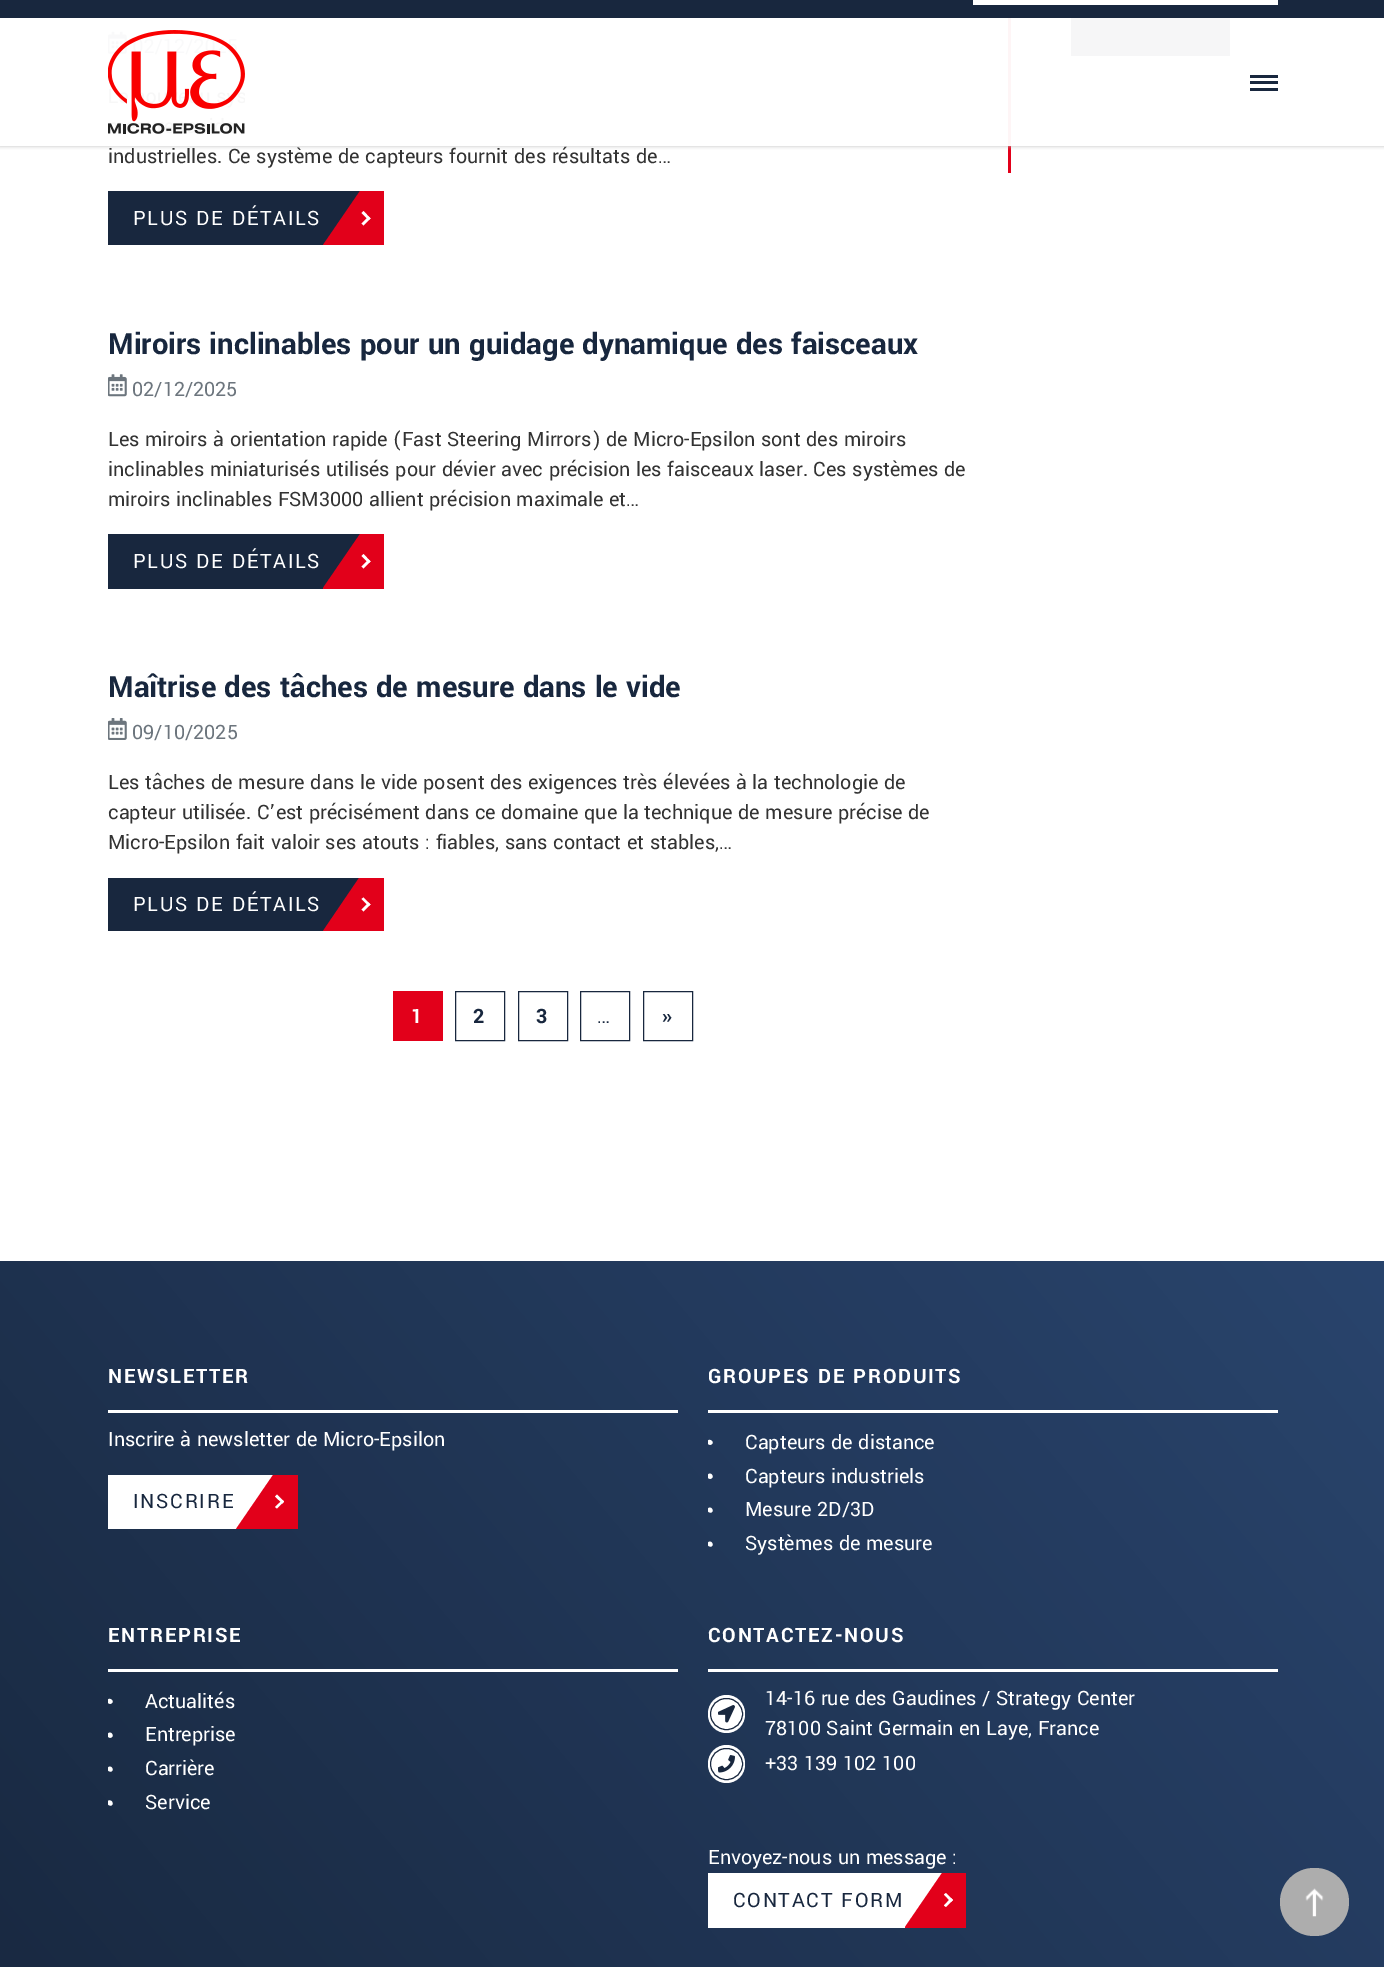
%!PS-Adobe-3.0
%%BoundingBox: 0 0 1384 1967
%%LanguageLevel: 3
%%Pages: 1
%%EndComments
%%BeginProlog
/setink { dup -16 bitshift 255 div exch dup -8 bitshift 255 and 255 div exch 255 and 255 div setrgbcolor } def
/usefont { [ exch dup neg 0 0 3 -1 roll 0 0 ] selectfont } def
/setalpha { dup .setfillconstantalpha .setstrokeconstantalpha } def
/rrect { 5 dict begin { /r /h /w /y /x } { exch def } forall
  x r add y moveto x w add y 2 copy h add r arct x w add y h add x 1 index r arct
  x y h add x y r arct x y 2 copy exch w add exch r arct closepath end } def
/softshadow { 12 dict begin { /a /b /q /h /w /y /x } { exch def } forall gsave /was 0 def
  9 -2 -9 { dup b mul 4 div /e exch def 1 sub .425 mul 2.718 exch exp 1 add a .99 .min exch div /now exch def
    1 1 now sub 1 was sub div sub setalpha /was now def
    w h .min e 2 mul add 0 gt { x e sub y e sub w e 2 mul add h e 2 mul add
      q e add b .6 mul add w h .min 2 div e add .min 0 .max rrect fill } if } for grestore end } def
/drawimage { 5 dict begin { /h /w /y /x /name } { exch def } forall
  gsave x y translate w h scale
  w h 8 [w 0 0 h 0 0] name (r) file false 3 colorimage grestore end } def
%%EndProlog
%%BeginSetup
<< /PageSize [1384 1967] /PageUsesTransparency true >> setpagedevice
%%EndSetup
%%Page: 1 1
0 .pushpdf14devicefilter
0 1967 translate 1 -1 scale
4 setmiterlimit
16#FFFFFF setink
0 0 1384 1967 rectfill
[
    [1008 146 3 27 16#E2001A]
    [1008 18 3 128 16#FEF5F6]
    [1071 18 159 38 16#F6F6F7]
] { aload pop setink rectfill } forall
(img2.raw) 108 31 19 23 drawimage
gsave
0 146 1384 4 rectclip
16#BBBBBB setink
0 -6 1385 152 0 2 1 softshadow
grestore
16#18273E setink
0 0 1384 18 rectfill
16#FFFFFF setink
973 0 305 5 rectfill
(img1.raw) 108 30 137 104 drawimage
[
    [1250 75 28 3 16#18273E]
    [1250 81 28 3 16#18273E]
    [1250 88 28 3 16#18273E]
] { aload pop setink rectfill } forall
/Yantramanav-Regular 22 usefont
16#333333 setink
108 163 moveto (industrielles. Ce système de capteurs fournit des résultats de…) show
16#18273E setink
108 191 252 54 rectfill
16#FFFFFF setink
133 225 moveto 1.75 0 (PLUS DE DÉTAILS) ashow
gsave
108 191 276 54 rectclip
16#E2001A setink
360 191 moveto 385 191 lineto 385 246 lineto 323 246 lineto 323 245 lineto closepath fill
grestore
363.5 211 moveto 370.5 218.5 lineto 368.5 220 lineto 361.5 213 lineto closepath fill
368.5 216.5 moveto 370.5 218.5 lineto 363.5 225.5 lineto 361.5 223.5 lineto closepath fill
/Yantramanav-Bold 32.5 usefont
16#18273E setink
108 354 moveto (Miroirs inclinables pour un guidage dynamique des faisceaux) show
(img3.raw) 108 374 19 23 drawimage
/Yantramanav-Regular 22 usefont
16#6C757D setink
132 396 moveto (02/12/2025) show
16#333333 setink
[
    [(Les miroirs à orientation rapide \(Fast Steering Mirrors\) de Micro-Epsilon sont des miroirs) 108 446]
    [(inclinables miniaturisés utilisés pour dévier avec précision les faisceaux laser. Ces systèmes de) 108 476]
    [(miroirs inclinables FSM3000 allient précision maximale et…) 108 506]
] { aload pop moveto show } forall
16#18273E setink
108 534 252 55 rectfill
16#FFFFFF setink
133 568 moveto 1.75 0 (PLUS DE DÉTAILS) ashow
gsave
108 534 276 55 rectclip
16#E2001A setink
360 534 moveto 385 534 lineto 385 589 lineto 323 589 lineto 323 588 lineto closepath fill
grestore
363.5 554 moveto 370.5 561.5 lineto 368.5 563 lineto 361.5 556 lineto closepath fill
368.5 559.5 moveto 370.5 561.5 lineto 363.5 568.5 lineto 361.5 566.5 lineto closepath fill
/Yantramanav-Bold 32.5 usefont
16#18273E setink
108 697 moveto (Maîtrise des tâches de mesure dans le vide) show
(img4.raw) 108 718 19 22 drawimage
/Yantramanav-Regular 22 usefont
16#6C757D setink
132 739 moveto (09/10/2025) show
16#333333 setink
[
    [(Les tâches de mesure dans le vide posent des exigences très élevées à la technologie de) 108 789]
    [(capteur utilisée. C’est précisément dans ce domaine que la technique de mesure précise de) 108 819]
    [(Micro-Epsilon fait valoir ses atouts : fiables, sans contact et stables,…) 108 849]
] { aload pop moveto show } forall
16#18273E setink
108 878 251 53 rectfill
16#FFFFFF setink
133 911 moveto 1.75 0 (PLUS DE DÉTAILS) ashow
gsave
108 878 276 53 rectclip
16#E2001A setink
323 931 moveto 359 878 lineto 385 878 lineto 385 932 lineto 323 932 lineto closepath fill
grestore
363.5 897.5 moveto 370.5 904.5 lineto 368.5 906 lineto 361.5 899 lineto closepath fill
368.5 902.5 moveto 370.5 904.5 lineto 363.5 911.5 lineto 361.5 909.5 lineto closepath fill
16#E2001A setink
393 991 50 50 rectfill
/Yantramanav-Bold 22 usefont
16#FFFFFF setink
411 1023 moveto 1.75 0 (1) ashow
16#18273E setink
455.5 991.5 49 49 rectstroke
473 1023 moveto 1.75 0 (2) ashow
518.5 991.5 49 49 rectstroke
536 1023 moveto 1.75 0 (3) ashow
580.5 991.5 49 49 rectstroke
/Yantramanav-Regular 22 usefont
597 1023 moveto 1.75 0 (…) ashow
643.5 991.5 49 49 rectstroke
/Yantramanav-Bold 22 usefont
662 1023 moveto 1.75 0 (») ashow
gsave 0 1261 moveto 1384 1261 lineto 1384 1967 lineto 0 1967 lineto closepath clip newpath
<< /ShadingType 2 /ColorSpace /DeviceRGB /Coords [65 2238 1320 1184] /Extend [true true] /Function << /FunctionType 2 /Domain [0 1] /C0 [0.094 0.153 0.243] /C1 [0.161 0.267 0.427] /N 1 >> >> shfill grestore
16#FFFFFF setink
108 1383 moveto 1.75 0 (NEWSLETTER) ashow
108 1410 570 3 rectfill
/Yantramanav-Regular 22 usefont
108 1446 moveto (Inscrire à newsletter de Micro-Epsilon) show
108 1475 165 54 rectfill
16#18273E setink
133 1508 moveto 1.75 0 (INSCRIRE) ashow
16#E2001A setink
236 1529 moveto 273 1475 lineto 298 1475 lineto 298 1529 lineto closepath fill
16#FFFFFF setink
277 1494.5 moveto 284 1501.5 lineto 282.5 1503.5 lineto 275 1496.5 lineto closepath fill
282.5 1500 moveto 284 1501.5 lineto 277 1508.5 lineto 275 1507 lineto closepath fill
/Yantramanav-Bold 22 usefont
708 1383 moveto 1.75 0 (GROUPES DE PRODUITS) ashow
708 1410 570 3 rectfill
gsave
708 1361 570 199 rectclip
712 1444 moveto 709.5 1446.5 706 1443 708 1440.5 curveto 710.5 1438.5 714 1442 712 1444 curveto closepath fill
grestore
/Yantramanav-Regular 22 usefont
745 1449 moveto (Capteurs de distance) show
gsave
708 1361 570 199 rectclip
712 1478 moveto 709.5 1480.5 706 1477 708 1474.5 curveto 710.5 1472 714 1475.5 712 1478 curveto closepath fill
grestore
745 1483 moveto (Capteurs industriels) show
gsave
708 1361 570 199 rectclip
712 1512 moveto 709.5 1514 706 1510.5 708 1508.5 curveto 710.5 1506 714 1509.5 712 1512 curveto closepath fill
grestore
745 1516 moveto (Mesure 2D/3D) show
gsave
708 1361 570 199 rectclip
712 1546 moveto 709.5 1548 706 1544.5 708 1542.5 curveto 710.5 1540 714 1543.5 712 1546 curveto closepath fill
grestore
745 1550 moveto (Systèmes de mesure) show
/Yantramanav-Bold 22 usefont
108 1642 moveto 1.75 0 (ENTREPRISE) ashow
108 1669 570 3 rectfill
gsave
108 1620 570 200 rectclip
112 1703 moveto 109.5 1705.5 106 1702 108 1699.5 curveto 110.5 1697.5 114 1701 112 1703 curveto closepath fill
grestore
/Yantramanav-Regular 22 usefont
145 1708 moveto (Actualités) show
gsave
108 1620 570 200 rectclip
112 1737 moveto 109.5 1739.5 106 1735.5 108 1733.5 curveto 110.5 1731 114 1734.5 112 1737 curveto closepath fill
grestore
145 1741 moveto (Entreprise) show
gsave
108 1620 570 200 rectclip
112 1771 moveto 109.5 1773 106 1769.5 108 1767.5 curveto 110.5 1765 114 1768.5 112 1771 curveto closepath fill
grestore
145 1775 moveto (Carrière) show
gsave
108 1620 570 200 rectclip
112 1805 moveto 109.5 1807 106 1803.5 108 1801 curveto 110.5 1799 114 1802.5 112 1805 curveto closepath fill
grestore
145 1809 moveto (Service) show
/Yantramanav-Bold 22 usefont
708 1642 moveto 1.75 0 (CONTACTEZ-NOUS) ashow
708 1669 570 3 rectfill
708 1695 37 38 18.5 rrect fill
(img5.raw) 718 1705 17 18 drawimage
16#18273E setink
710.5 1698.5 32 31 15.5 rrect stroke
/Yantramanav-Regular 22 usefont
16#FFFFFF setink
765 1705 moveto (14-16 rue des Gaudines / Strategy Center) show
765 1735 moveto (78100 Saint Germain en Laye, France) show
708 1745 37 38 18.5 rrect fill
(img6.raw) 718 1755 17 18 drawimage
16#18273E setink
710.5 1748.5 32 31 15.5 rrect stroke
16#FFFFFF setink
765 1770 moveto (+33 139 102 100) show
708 1864 moveto (Envoyez-nous un message :) show
708 1873 234 55 rectfill
16#18273E setink
733 1907 moveto 1.75 0 (CONTACT FORM) ashow
gsave
708 1873 258 55 rectclip
16#E2001A setink
905 1927 moveto 942 1873 lineto 967 1873 lineto 967 1928 lineto 905 1928 lineto closepath fill
grestore
16#FFFFFF setink
946 1893 moveto 953 1900 lineto 951 1902 lineto 944 1894.5 lineto closepath fill
951 1898 moveto 953 1900 lineto 946 1907 lineto 944 1905.5 lineto closepath fill
16#ADADAD setink
1280 1868 69 68 34 rrect fill
(img7.raw) 1305 1888 19 29 drawimage
.poppdf14devicefilter showpage
%%EOF
